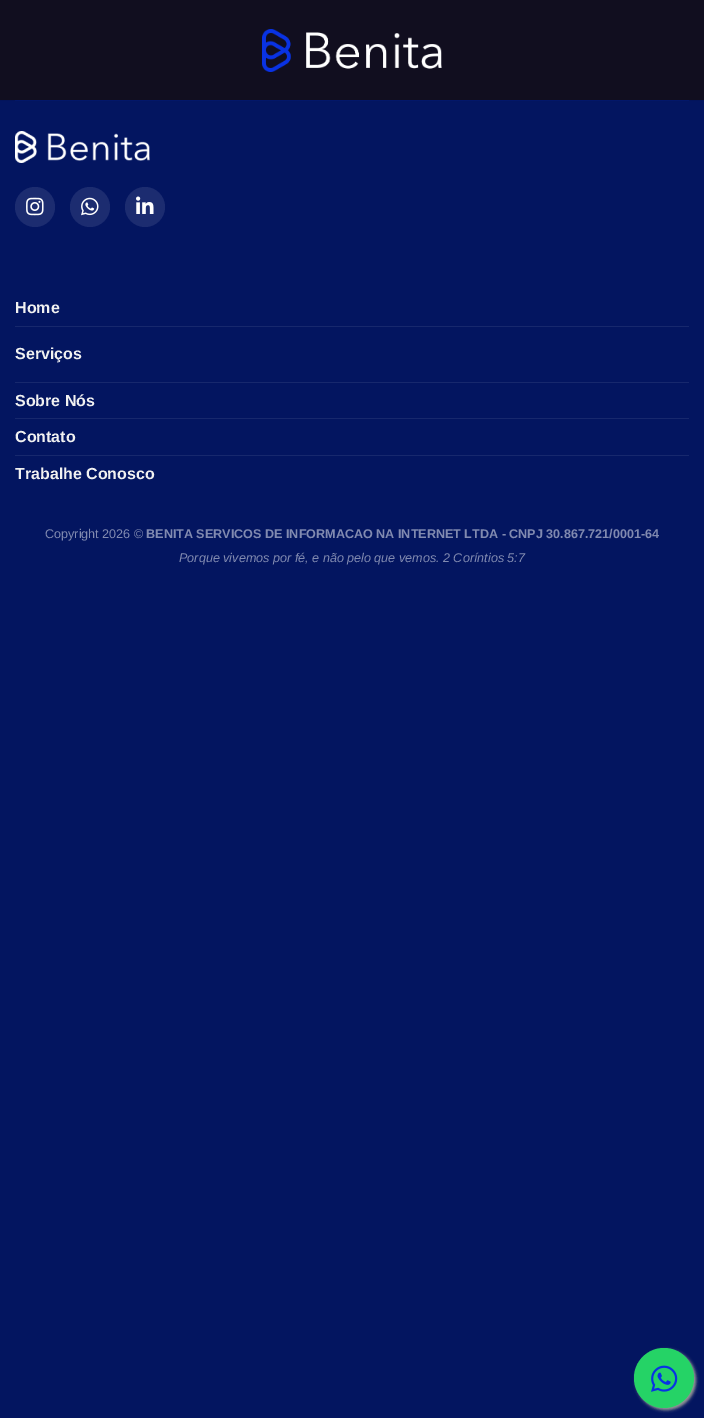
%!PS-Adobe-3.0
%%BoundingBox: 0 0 704 1418
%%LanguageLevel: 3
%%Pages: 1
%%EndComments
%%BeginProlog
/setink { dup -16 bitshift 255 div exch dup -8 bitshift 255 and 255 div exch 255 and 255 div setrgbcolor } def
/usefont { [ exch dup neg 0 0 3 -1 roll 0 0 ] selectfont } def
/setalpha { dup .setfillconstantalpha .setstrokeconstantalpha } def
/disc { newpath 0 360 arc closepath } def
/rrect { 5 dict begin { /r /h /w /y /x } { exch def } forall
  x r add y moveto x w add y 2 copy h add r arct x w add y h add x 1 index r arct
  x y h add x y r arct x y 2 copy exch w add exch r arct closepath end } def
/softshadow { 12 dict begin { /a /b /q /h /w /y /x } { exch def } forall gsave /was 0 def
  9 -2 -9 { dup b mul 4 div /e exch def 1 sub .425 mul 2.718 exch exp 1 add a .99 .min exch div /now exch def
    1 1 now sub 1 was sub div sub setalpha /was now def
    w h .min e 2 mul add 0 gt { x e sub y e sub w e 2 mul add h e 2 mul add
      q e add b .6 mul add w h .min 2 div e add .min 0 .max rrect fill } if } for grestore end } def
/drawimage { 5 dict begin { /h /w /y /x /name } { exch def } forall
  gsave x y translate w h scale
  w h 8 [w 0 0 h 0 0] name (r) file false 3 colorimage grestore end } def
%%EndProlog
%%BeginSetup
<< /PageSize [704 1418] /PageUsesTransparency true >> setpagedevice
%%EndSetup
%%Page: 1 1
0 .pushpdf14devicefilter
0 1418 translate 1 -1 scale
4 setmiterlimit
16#031560 setink
0 0 704 1418 rectfill
16#110E1F setink
0 0 704 100 rectfill
(img1.raw) 262 29 180 43 drawimage
16#03145B setink
0 100 704 1 rectfill
16#031769 setink
15 100 674 1 rectfill
(img2.raw) 15 131 135 32 drawimage
16#1C2C70 setink
35 207 20 disc fill
(img3.raw) 26 197 18 19 drawimage
90 207 20 disc fill
(img4.raw) 81 197 18 19 drawimage
145 207 20 disc fill
(img5.raw) 136 196 18 18 drawimage
/LiberationSans-Bold 16 usefont
16#F1F1F1 setink
15 313 moveto (Home) show
16#17286D setink
15 326 674 1 rectfill
16#F1F1F1 setink
15 359 moveto (Serviços) show
16#17286D setink
15 382 674 1 rectfill
16#F1F1F1 setink
15 406 moveto (Sobre Nós) show
16#17286D setink
15 418 674 1 rectfill
16#F1F1F1 setink
15 442 moveto (Contato) show
16#17286D setink
15 455 674 1 rectfill
16#F1F1F1 setink
15 479 moveto (Trabalhe Conosco) show
/LiberationSans-Regular 12.6 usefont
16#818AB0 setink
45 538 moveto (Copyright 2026 ©) show
/LiberationSans-Bold 12.6 usefont
146 538 moveto (BENITA SERVICOS DE INFORMACAO NA INTERNET LTDA - CNPJ 30.867.721/0001-64) show
/LiberationSans-Italic 12.6 usefont
179 562 moveto (Porque vivemos por fé, e não pelo que vemos. 2 Coríntios 5:7) show
16#999999 setink
636 1350 60 60 30 1.5 1 softshadow
16#25D366 setink
664 1378 30 disc fill
(img6.raw) 651 1365 27 27 drawimage
.poppdf14devicefilter showpage
%%EOF
